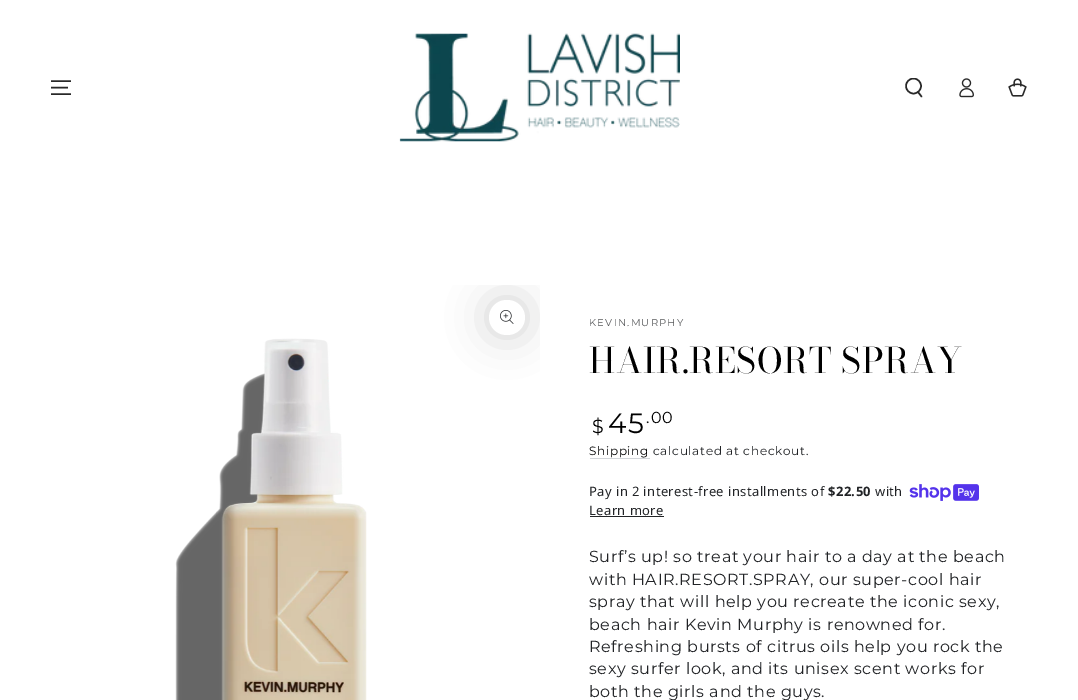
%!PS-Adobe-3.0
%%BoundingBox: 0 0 1078 700
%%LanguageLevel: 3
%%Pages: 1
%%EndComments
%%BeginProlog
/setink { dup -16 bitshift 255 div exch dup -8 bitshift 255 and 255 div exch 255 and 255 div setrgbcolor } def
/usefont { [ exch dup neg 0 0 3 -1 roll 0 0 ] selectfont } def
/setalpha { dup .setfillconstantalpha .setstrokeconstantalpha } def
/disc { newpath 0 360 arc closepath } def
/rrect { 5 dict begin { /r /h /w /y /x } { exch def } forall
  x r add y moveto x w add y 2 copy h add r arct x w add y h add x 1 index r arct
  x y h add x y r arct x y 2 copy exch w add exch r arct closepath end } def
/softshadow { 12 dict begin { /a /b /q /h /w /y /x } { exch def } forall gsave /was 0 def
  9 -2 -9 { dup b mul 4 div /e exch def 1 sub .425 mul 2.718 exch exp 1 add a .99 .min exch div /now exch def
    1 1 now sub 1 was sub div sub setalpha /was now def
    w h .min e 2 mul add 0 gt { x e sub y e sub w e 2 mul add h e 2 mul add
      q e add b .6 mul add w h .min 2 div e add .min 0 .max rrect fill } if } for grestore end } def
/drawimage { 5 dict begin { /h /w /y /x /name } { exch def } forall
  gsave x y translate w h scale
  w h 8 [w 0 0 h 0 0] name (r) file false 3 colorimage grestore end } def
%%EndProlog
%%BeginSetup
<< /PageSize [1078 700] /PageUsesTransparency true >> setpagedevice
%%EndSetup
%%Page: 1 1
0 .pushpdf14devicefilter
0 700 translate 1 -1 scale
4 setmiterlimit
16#FFFFFF setink
0 0 1078 700 rectfill
16#282828 setink
1.4 setlinewidth
51 94 moveto 71 94 lineto 51 87.5 moveto 68 87.5 lineto 51 81 moveto 71 81 lineto stroke
(img1.raw) 399 33 281 109 drawimage
gsave
904 78 20 20 rectclip
1.5 setlinewidth
913.5 86 7.5 disc stroke
grestore
1.5 setlinewidth
1 setlinecap
918 92 moveto 921.5 96.5 lineto stroke
(img2.raw) 959 78 15 20 drawimage
(img3.raw) 1008 78 19 19 drawimage
gsave
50 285 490 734 rectclip
16#212326 setink
489 300 36 35 17.5 20 0.2 softshadow
grestore
16#FFFFFF setink
489 300 36 35 17.5 rrect fill
(img4.raw) 500 310 14 14 drawimage
(img5.raw) 175 338 192 362 drawimage
/Montserrat-Regular 10 usefont
16#595A5C setink
589 326 moveto 1.25 0 (KEVIN.MURPHY) ashow
/BodoniModa-Regular 35 usefont
16#000000 setink
589 373 moveto 0.75 0 (HAIR.RESORT SPRAY) ashow
/Montserrat-Regular 19 usefont
592 433 moveto 1.25 0 ($) ashow
/Montserrat-Regular 28 usefont
608 433 moveto 1.25 0 (45) ashow
/Montserrat-Regular 16 usefont
646 423 moveto 1.25 0 (.00) ashow
/Montserrat-Regular 12 usefont
589 455 moveto 0.7 0 (Shipping) ashow
16#D2D5D9 setink
590 458 60 1 rectfill
16#212326 setink
653 455 moveto 0.7 0 (calculated at checkout.) ashow
/NotoSans-Regular 13 usefont
589 496 moveto 0.4 0 (Pay in 2 interest-free installments of) ashow
/NotoSans-Bold 13 usefont
828 496 moveto 0.4 0 ($22.50) ashow
/NotoSans-Regular 13 usefont
875 496 moveto 0.4 0 (with) ashow
(img6.raw) 909 484 70 17 drawimage
589 515 moveto 0.4 0 (Learn more) ashow
590 516 74 1 rectfill
/Montserrat-Regular 16 usefont
589 562 moveto 0.6 0 (Surf’s up! so treat your hair to a day at the beach) ashow
589 585 moveto 0.6 0 (with HAIR.RESORT.SPRAY, our super-cool hair) ashow
589 607 moveto 0.6 0 (spray that will help you recreate the iconic sexy,) ashow
589 630 moveto 0.6 0 (beach hair Kevin Murphy is renowned for.) ashow
589 652 moveto 0.6 0 (Refreshing bursts of citrus oils help you rock the) ashow
589 674 moveto 0.6 0 (sexy surfer look, and its unisex scent works for) ashow
589 697 moveto 0.6 0 (both the girls and the guys.) ashow
.poppdf14devicefilter showpage
%%EOF
